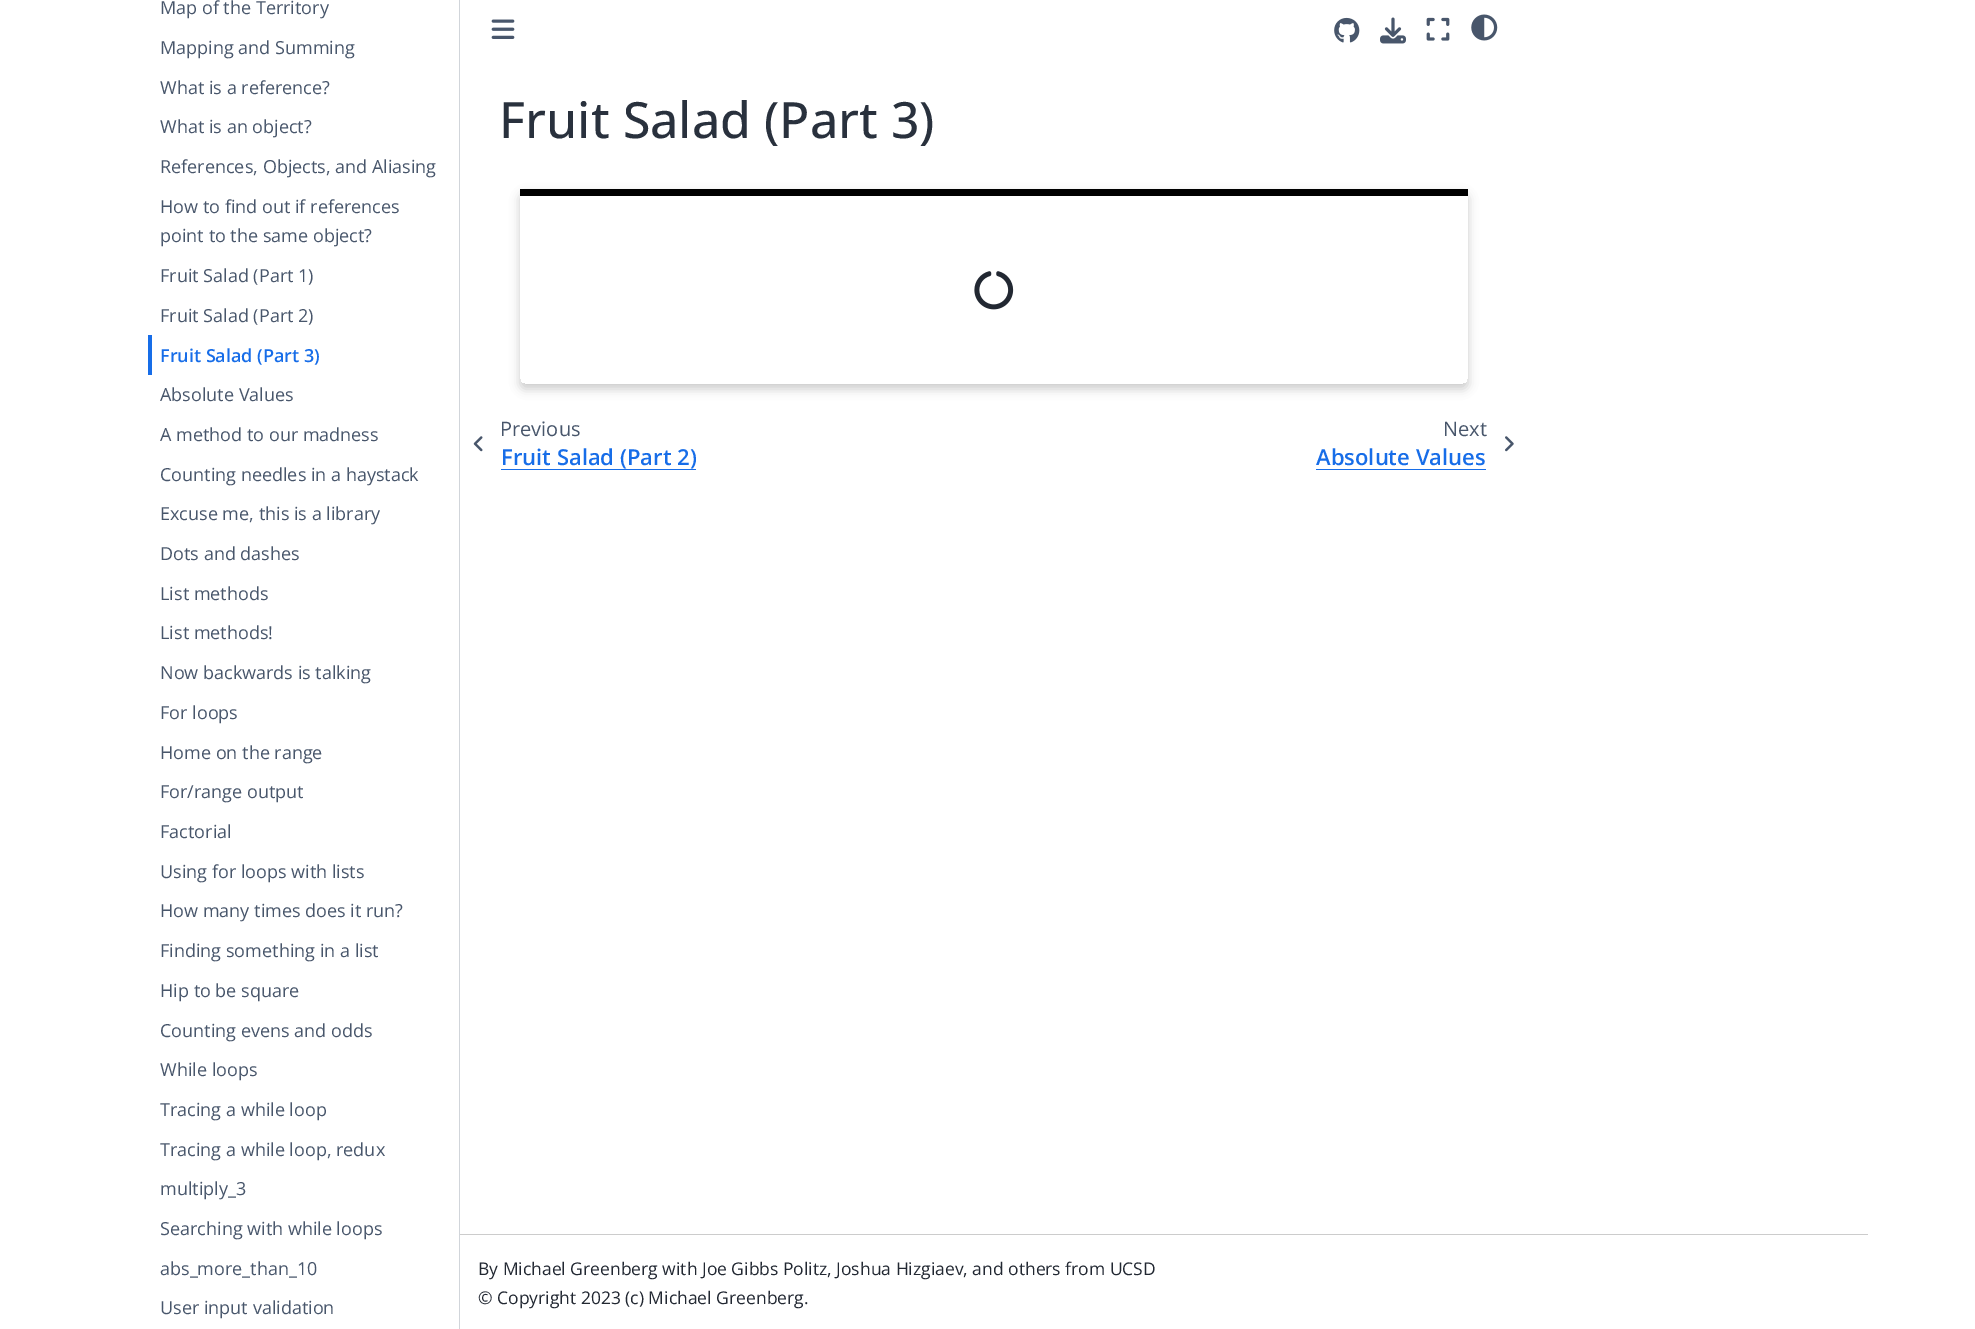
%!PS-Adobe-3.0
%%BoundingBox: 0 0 1975 1329
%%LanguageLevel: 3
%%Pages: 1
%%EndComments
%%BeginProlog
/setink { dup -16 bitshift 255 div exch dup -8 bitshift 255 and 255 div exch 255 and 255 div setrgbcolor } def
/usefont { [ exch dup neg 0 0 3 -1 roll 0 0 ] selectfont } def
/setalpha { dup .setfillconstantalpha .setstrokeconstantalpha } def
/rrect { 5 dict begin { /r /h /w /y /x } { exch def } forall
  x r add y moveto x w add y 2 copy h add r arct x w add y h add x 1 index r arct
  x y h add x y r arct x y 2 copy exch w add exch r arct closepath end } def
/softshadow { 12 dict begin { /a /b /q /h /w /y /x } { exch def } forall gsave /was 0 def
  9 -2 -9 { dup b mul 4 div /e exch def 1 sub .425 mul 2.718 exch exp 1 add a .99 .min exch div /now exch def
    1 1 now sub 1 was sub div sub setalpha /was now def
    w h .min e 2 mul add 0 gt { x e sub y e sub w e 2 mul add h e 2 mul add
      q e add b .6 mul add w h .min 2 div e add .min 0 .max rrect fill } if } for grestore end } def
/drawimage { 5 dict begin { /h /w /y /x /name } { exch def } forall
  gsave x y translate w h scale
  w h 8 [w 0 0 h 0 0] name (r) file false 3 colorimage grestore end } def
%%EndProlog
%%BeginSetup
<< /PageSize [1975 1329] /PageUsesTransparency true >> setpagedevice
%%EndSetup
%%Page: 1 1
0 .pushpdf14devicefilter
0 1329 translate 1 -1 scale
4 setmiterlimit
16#FFFFFF setink
0 0 1975 1329 rectfill
16#D1D5DA setink
459 0 1 1329 rectfill
/OpenSans-Regular 18 usefont
16#48566B setink
[
    [(Map of the Territory) 160 14]
    [(Mapping and Summing) 160 54]
    [(What is a reference?) 160 94]
    [(What is an object?) 160 133]
    [(References, Objects, and Aliasing) 160 173]
    [(How to find out if references) 160 213]
    [(point to the same object?) 160 242]
    [(Fruit Salad \(Part 1\)) 160 282]
    [(Fruit Salad \(Part 2\)) 160 322]
] { aload pop moveto show } forall
16#176DE8 setink
148 335 4 40 rectfill
/OpenSans-SemiBold 18 usefont
160 362 moveto (Fruit Salad \(Part 3\)) show
/OpenSans-Regular 18 usefont
16#48566B setink
[
    [(Absolute Values) 160 401]
    [(A method to our madness) 160 441]
    [(Counting needles in a haystack) 160 481]
    [(Excuse me, this is a library) 160 520]
    [(Dots and dashes) 160 560]
    [(List methods) 160 600]
    [(List methods!) 160 639]
    [(Now backwards is talking) 160 679]
    [(For loops) 160 719]
    [(Home on the range) 160 759]
    [(For/range output) 160 798]
    [(Factorial) 160 838]
    [(Using for loops with lists) 160 878]
    [(How many times does it run?) 160 917]
    [(Finding something in a list) 160 957]
    [(Hip to be square) 160 997]
    [(Counting evens and odds) 160 1037]
    [(While loops) 160 1076]
    [(Tracing a while loop) 160 1116]
    [(Tracing a while loop, redux) 160 1156]
    [(multiply_3) 160 1195]
    [(Searching with while loops) 160 1235]
    [(abs_more_than_10) 160 1275]
    [(User input validation) 160 1314]
] { aload pop moveto show } forall
(img1.raw) 491 19 24 20 drawimage
(img2.raw) 1334 17 26 26 drawimage
(img3.raw) 1380 17 26 27 drawimage
(img4.raw) 1426 17 24 24 drawimage
(img5.raw) 1471 14 27 27 drawimage
/OpenSans-Medium 50 usefont
16#29313D setink
499 138 moveto (Fruit Salad \(Part 3\)) show
gsave
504 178 moveto 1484 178 lineto 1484 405 lineto 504 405 lineto closepath 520 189 moveto 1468 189 lineto 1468 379 lineto 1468 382 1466 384 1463 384 curveto 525 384 lineto 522 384 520 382 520 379 curveto closepath eoclip newpath
16#000000 setink
520 194 948 195 5 5 0.2 softshadow
grestore
16#000000 setink
520 189 948 7 rectfill
(img6.raw) 974 271 40 39 drawimage
(img7.raw) 473 436 10 16 drawimage
/OpenSans-Regular 20 usefont
16#48566B setink
500 436 moveto (Previous) show
/OpenSans-SemiBold 22 usefont
16#176DE8 setink
501 465 moveto (Fruit Salad \(Part 2\)) show
501 469 195 1 rectfill
/OpenSans-Regular 20 usefont
16#48566B setink
1443 436 moveto (Next) show
/OpenSans-SemiBold 22 usefont
16#176DE8 setink
1316 465 moveto (Absolute Values) show
1316 469 170 1 rectfill
(img8.raw) 1505 436 9 16 drawimage
16#CCCCCC setink
460 1234 1408 1 rectfill
/OpenSans-Regular 17.5 usefont
16#222832 setink
478 1275 moveto (By Michael Greenberg with Joe Gibbs Politz, Joshua Hizgiaev, and others from UCSD) show
478 1304 moveto (© Copyright 2023 \(c\) Michael Greenberg.) show
.poppdf14devicefilter showpage
%%EOF
